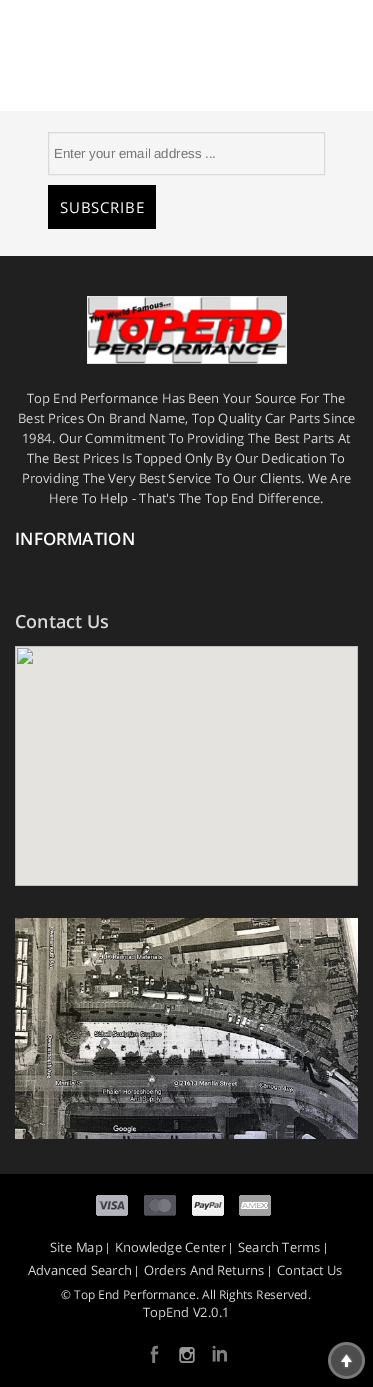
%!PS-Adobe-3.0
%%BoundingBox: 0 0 373 1387
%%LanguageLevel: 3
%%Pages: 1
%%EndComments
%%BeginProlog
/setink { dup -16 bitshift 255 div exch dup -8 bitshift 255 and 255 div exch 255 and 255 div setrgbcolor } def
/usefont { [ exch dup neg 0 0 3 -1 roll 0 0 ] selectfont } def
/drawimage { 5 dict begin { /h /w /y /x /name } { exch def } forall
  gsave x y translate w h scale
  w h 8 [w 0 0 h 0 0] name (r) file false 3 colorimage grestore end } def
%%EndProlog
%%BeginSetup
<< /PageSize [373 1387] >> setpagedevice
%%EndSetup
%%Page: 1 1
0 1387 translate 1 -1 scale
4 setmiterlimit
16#FFFFFF setink
0 0 373 1387 rectfill
16#202020 setink
0 256 373 918 rectfill
16#F5F5F5 setink
0 111 373 145 rectfill
16#D9D9D9 setink
48.5 132.5 276 42 rectstroke
/LiberationSans-Regular 13.25 usefont
16#757575 setink
54 158 moveto (Enter your email address ...) show
16#000000 setink
48 185 108 44 rectfill
/OpenSans-Regular 15 usefont
16#FFFFFF setink
60 213 moveto 0.75 0 (SUBSCRIBE) ashow
(img1.raw) 87 296 200 68 drawimage
/OpenSans-Regular 13 usefont
16#D9D9D9 setink
[
    [(Top End Performance Has Been Your Source For The) 27 403]
    [(Best Prices On Brand Name, Top Quality Car Parts Since) 18 423]
    [(1984. Our Commitment To Providing The Best Parts At) 22 443]
    [(The Best Prices Is Topped Only By Our Dedication To) 27 463]
    [(Providing The Very Best Service To Our Clients. We Are) 22 483]
    [(Here To Help - That's The Top End Difference.) 49 503]
] { aload pop moveto show } forall
/OpenSans-SemiBold 17 usefont
16#FFFFFF setink
15 545 moveto (INFORMATION) show
/OpenSans-SemiBold 18 usefont
16#D9D9D9 setink
15 628 moveto (Contact Us) show
(img2.raw) 15 646 343 240 drawimage
(img3.raw) 15 918 343 221 drawimage
16#000000 setink
0 1174 373 213 rectfill
(img4.raw) 96 1195 32 21 drawimage
(img5.raw) 144 1195 32 21 drawimage
(img6.raw) 192 1195 32 21 drawimage
(img7.raw) 239 1195 32 21 drawimage
16#B8B7B7 setink
107 1243 1 11 rectfill
/OpenSans-Regular 13 usefont
16#D9D9D9 setink
50 1252 moveto (Site Map) show
16#B8B7B7 setink
230 1243 1 11 rectfill
16#D9D9D9 setink
115 1252 moveto (Knowledge Center) show
16#B8B7B7 setink
325 1243 1 11 rectfill
16#D9D9D9 setink
238 1252 moveto (Search Terms) show
16#B8B7B7 setink
136 1266 1 11 rectfill
16#D9D9D9 setink
28 1275 moveto (Advanced Search) show
16#B8B7B7 setink
269 1266 1 11 rectfill
16#D9D9D9 setink
144 1275 moveto (Orders And Returns) show
277 1275 moveto (Contact Us) show
/OpenSans-Regular 12 usefont
61 1299 moveto (© Top End Performance. All Rights Reserved.) show
/OpenSans-Regular 13 usefont
143 1317 moveto (TopEnd V2.0.1) show
(img8.raw) 150 1345 9 18 drawimage
(img9.raw) 179 1347 16 16 drawimage
(img10.raw) 212 1345 15 17 drawimage
(img11.raw) 328 1342 37 37 drawimage
showpage
%%EOF
